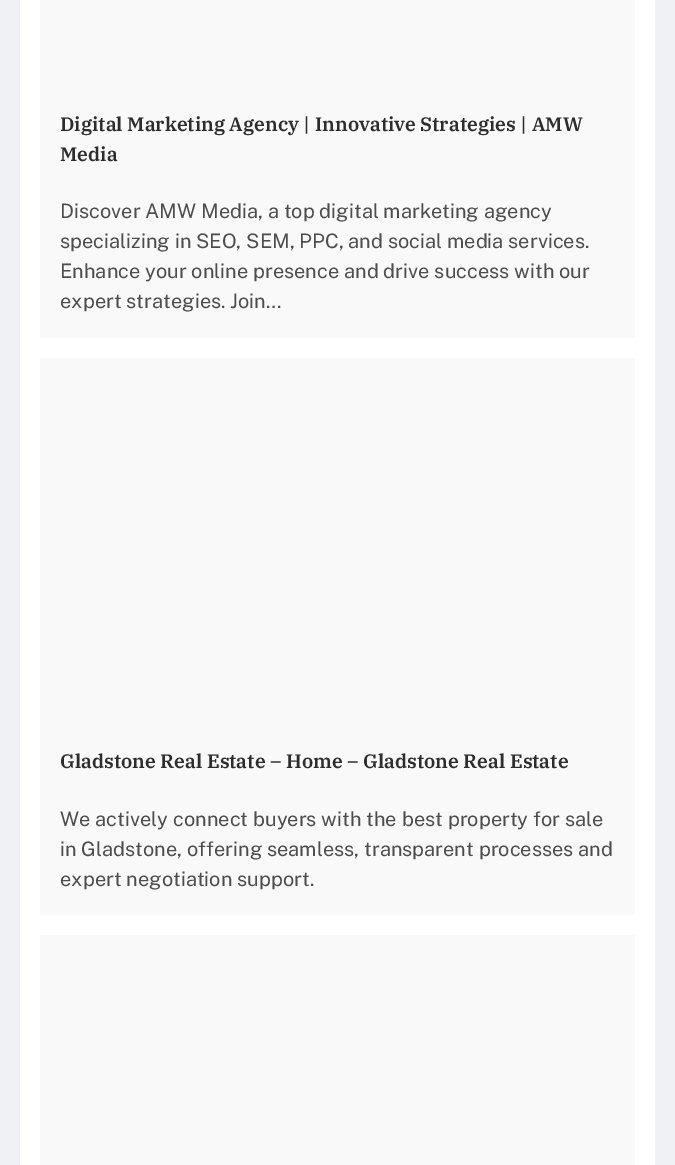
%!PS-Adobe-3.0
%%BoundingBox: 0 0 675 1165
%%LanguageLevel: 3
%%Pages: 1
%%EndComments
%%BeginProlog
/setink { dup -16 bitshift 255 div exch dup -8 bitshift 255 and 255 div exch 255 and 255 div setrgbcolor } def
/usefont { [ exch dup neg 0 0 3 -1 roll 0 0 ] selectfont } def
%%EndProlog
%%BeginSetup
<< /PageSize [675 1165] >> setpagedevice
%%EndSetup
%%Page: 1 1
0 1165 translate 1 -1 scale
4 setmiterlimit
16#F0F1F4 setink
0 0 675 1165 rectfill
16#FFFFFF setink
20 0 635 1165 rectfill
16#F9F9F9 setink
40 0 595 338 rectfill
/IBMPlexSerif-SemiBold 19.5 usefont
16#2D2D2D setink
60 131 moveto (Digital Marketing Agency | Innovative Strategies | AMW) show
60 161 moveto (Media) show
/PublicSans-Regular 20 usefont
16#4D4D4D setink
[
    [(Discover AMW Media, a top digital marketing agency) 60 218]
    [(specializing in SEO, SEM, PPC, and social media services.) 60 248]
    [(Enhance your online presence and drive success with our) 60 278]
    [(expert strategies. Join…) 60 308]
] { aload pop moveto show } forall
16#F9F9F9 setink
40 358 595 557 rectfill
/IBMPlexSerif-SemiBold 19.5 usefont
16#2D2D2D setink
60 768 moveto (Gladstone Real Estate – Home – Gladstone Real Estate) show
/PublicSans-Regular 20 usefont
16#4D4D4D setink
[
    [(We actively connect buyers with the best property for sale) 60 826]
    [(in Gladstone, offering seamless, transparent processes and) 60 856]
    [(expert negotiation support.) 60 886]
] { aload pop moveto show } forall
16#F9F9F9 setink
40 935 595 230 rectfill
showpage
%%EOF
